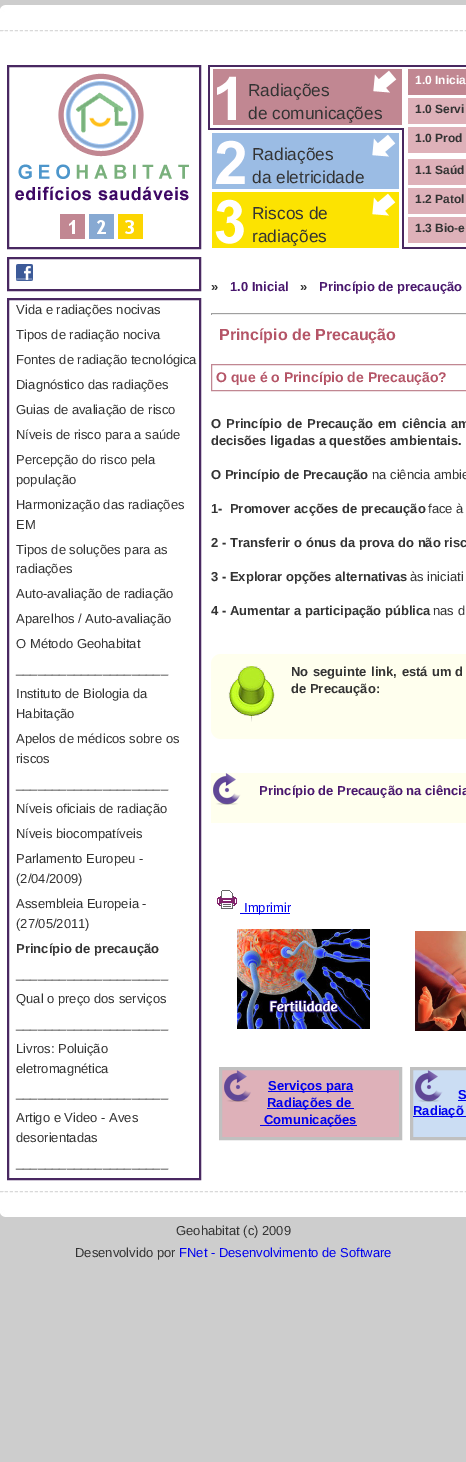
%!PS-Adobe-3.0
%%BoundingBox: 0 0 466 1462
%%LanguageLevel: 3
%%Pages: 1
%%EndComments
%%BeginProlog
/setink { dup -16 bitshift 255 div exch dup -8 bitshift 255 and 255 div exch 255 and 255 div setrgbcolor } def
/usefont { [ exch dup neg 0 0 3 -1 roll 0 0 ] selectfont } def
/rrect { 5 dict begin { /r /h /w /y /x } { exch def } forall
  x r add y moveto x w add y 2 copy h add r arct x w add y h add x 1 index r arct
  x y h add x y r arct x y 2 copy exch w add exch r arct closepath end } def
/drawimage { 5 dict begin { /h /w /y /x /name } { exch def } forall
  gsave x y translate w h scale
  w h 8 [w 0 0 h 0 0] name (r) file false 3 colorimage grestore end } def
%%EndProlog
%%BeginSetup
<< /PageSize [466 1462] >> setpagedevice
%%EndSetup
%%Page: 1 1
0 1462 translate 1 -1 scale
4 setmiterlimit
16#CDCDCD setink
0 0 466 1462 rectfill
16#FFFFFF setink
0 5 466 1212 rectfill
(img1.raw) 0 5 5 26 drawimage
16#D9D9D9 setink
[3 2] 0 setdash
0 30.5 moveto 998 30.5 lineto stroke
(img2.raw) 208 64 258 185 drawimage
16#492861 setink
2 setlinewidth
[] 0 setdash
8 66 192 182 rectstroke
(img3.raw) 15 73 174 166 drawimage
16#C18792 setink
213 69 189 56 rectfill
(img4.raw) 217 70 180 50 drawimage
/LiberationSans-Regular 17.25 usefont
16#333333 setink
248 96 moveto (Radiações) show
248 119 moveto (de comunicações) show
16#9BBCE4 setink
212 133 187 56 rectfill
(img5.raw) 215 134 181 50 drawimage
16#333333 setink
252 160 moveto (Radiações) show
252 183 moveto (da eletricidade) show
16#FCE301 setink
212 192 187 56 rectfill
(img6.raw) 215 193 181 51 drawimage
16#333333 setink
252 219 moveto (Riscos de) show
252 242 moveto (radiações) show
16#C18792 setink
408 69 58 26 rectfill
/LiberationSans-Bold 12 usefont
16#FFFFFF setink
415 84 moveto (1.0 Inicia) show
16#DEB1B9 setink
408 98 58 26 rectfill
16#333333 setink
415 113 moveto (1.0 Servi) show
16#DEB1B9 setink
408 127 58 26 rectfill
16#333333 setink
415 142 moveto (1.0 Prod) show
16#DEB1B9 setink
408 159 58 26 rectfill
16#333333 setink
415 174 moveto (1.1 Saúd) show
16#DEB1B9 setink
408 188 58 26 rectfill
16#333333 setink
415 203 moveto (1.2 Patol) show
16#DEB1B9 setink
408 217 58 26 rectfill
16#333333 setink
415 232 moveto (1.3 Bio-e) show
16#492861 setink
8 258 192 32 rectstroke
(img7.raw) 16 264 17 17 drawimage
8 299 192 880 rectstroke
/LiberationSans-Regular 13 usefont
16#333333 setink
[
    [(Vida e radiações nocivas) 16 314]
    [(Tipos de radiação nociva) 16 339]
    [(Fontes de radiação tecnológica) 16 364]
    [(Diagnóstico das radiações) 16 389]
    [(Guias de avaliação de risco) 16 414]
    [(Níveis de risco para a saúde) 16 439]
    [(Percepção do risco pela) 16 464]
    [(população) 16 484]
    [(Harmonização das radiações) 16 509]
    [(EM) 16 529]
    [(Tipos de soluções para as) 16 554]
    [(radiações) 16 573]
    [(Auto-avaliação de radiação) 16 598]
    [(Aparelhos / Auto-avaliação) 16 623]
    [(O Método Geohabitat) 16 648]
    [(_____________________) 16 673]
    [(Instituto de Biologia da) 16 698]
    [(Habitação) 16 718]
    [(Apelos de médicos sobre os) 16 743]
    [(riscos) 16 763]
    [(_____________________) 16 788]
    [(Níveis oficiais de radiação) 16 813]
    [(Níveis biocompatíveis) 16 838]
    [(Parlamento Europeu -) 16 863]
    [(\(2/04/2009\)) 16 883]
    [(Assembleia Europeia -) 16 908]
    [(\(27/05/2011\)) 16 928]
] { aload pop moveto show } forall
/LiberationSans-Bold 13 usefont
16 953 moveto (Princípio de precaução) show
/LiberationSans-Regular 13 usefont
[
    [(_____________________) 16 978]
    [(Qual o preço dos serviços) 16 1003]
    [(_____________________) 16 1028]
    [(Livros: Poluição) 16 1053]
    [(eletromagnética) 16 1073]
    [(_____________________) 16 1097]
    [(Artigo e Video - Aves) 16 1122]
    [(desorientadas) 16 1142]
    [(_____________________) 16 1167]
] { aload pop moveto show } forall
/LiberationSans-Bold 13 usefont
211 291 moveto (») show
16#49176D setink
230 291 moveto (1.0 Inicial) show
16#333333 setink
300 291 moveto (») show
16#49176D setink
319 291 moveto (Princípio de precaução) show
[
    [211 313 255 1 16#9F9F9F]
    [211 314 255 1 16#EEEEEE]
    [211 313 1 2 16#9F9F9F]
] { aload pop setink rectfill } forall
/LiberationSans-Bold 16 usefont
16#B55567 setink
219 340 moveto (Princípio de Precaução) show
16#C18792 setink
1 setlinewidth
211.5 364.5 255 26 rectstroke
/LiberationSans-Bold 14 usefont
16#B55567 setink
216 382 moveto (O que é o Princípio de Precaução?) show
/LiberationSans-Bold 13 usefont
16#333333 setink
211 428 moveto (O) show
226 428 moveto 1.5 0 32 (Princípio de Precaução em ciência am) widthshow
211 445 moveto (decisões ligadas a questões ambientais.) show
211 479 moveto (O Princípio de Precaução) show
/LiberationSans-Regular 13 usefont
372 479 moveto (na ciência ambie) show
/LiberationSans-Bold 13 usefont
211 513 moveto (1-  Promover acções de precaução) show
/LiberationSans-Regular 13 usefont
428 513 moveto (face à) show
/LiberationSans-Bold 13 usefont
211 547 moveto (2 - Transferir o ónus da prova do não risc) show
211 581 moveto (3 - Explorar opções alternativas) show
/LiberationSans-Regular 13 usefont
410 581 moveto (às iniciati) show
/LiberationSans-Bold 13 usefont
211 615 moveto (4 - Aumentar a participação pública) show
/LiberationSans-Regular 13 usefont
433 615 moveto (nas d) show
16#FFFFEE setink
211 654 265 85 10 rrect fill
(img8.raw) 228 666 47 56 drawimage
/LiberationSans-Bold 13 usefont
16#333333 setink
291 676 moveto 1 0 32 (No seguinte link, está um) widthshow
455 676 moveto 1 0 32 (d) widthshow
291 693 moveto (de Precaução:) show
16#FFFFEE setink
211 773 255 50 rectfill
(img9.raw) 213 773 28 32 drawimage
16#49176D setink
259 795 moveto (Princípio de Precaução na ciência) show
(img10.raw) 217 890 20 19 drawimage
16#0000EE setink
240 913 50 1 rectfill
/LiberationSans-Regular 13 usefont
244 912 moveto (Imprimir) show
(img11.raw) 237 929 133 100 drawimage
(img12.raw) 415 931 51 100 drawimage
16#DEB1B9 setink
222 1070 177 67 rectfill
(img13.raw) 224 1070 27 32 drawimage
16#C0C0C0 setink
3 setlinewidth
220.5 1068.5 180 70 rectstroke
16#0000EE setink
268 1091 85 1 rectfill
/LiberationSans-Bold 13 usefont
268 1090 moveto (Serviços para) show
267 1108 87 1 rectfill
267 1107 moveto (Radiações de) show
260 1125 97 1 rectfill
264 1124 moveto (Comunicações) show
16#CBDDF3 setink
413 1070 53 67 rectfill
(img14.raw) 415 1070 28 32 drawimage
16#C0C0C0 setink
411.5 1068.5 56 70 rectstroke
16#0000EE setink
458 1099 moveto (S) show
458 1100 8 1 rectfill
413 1116 53 1 rectfill
413 1115 moveto (Radiaçõ) show
(img15.raw) 0 1191 5 26 drawimage
16#D9D9D9 setink
1 setlinewidth
[3 2] 0 setdash
0 1191.5 moveto 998 1191.5 lineto stroke
/LiberationSans-Regular 13 usefont
16#333333 setink
176 1235 moveto (Geohabitat \(c\) 2009) show
75 1257 moveto (Desenvolvido por) show
16#0000EE setink
179 1257 moveto (FNet - Desenvolvimento de Software) show
showpage
%%EOF
